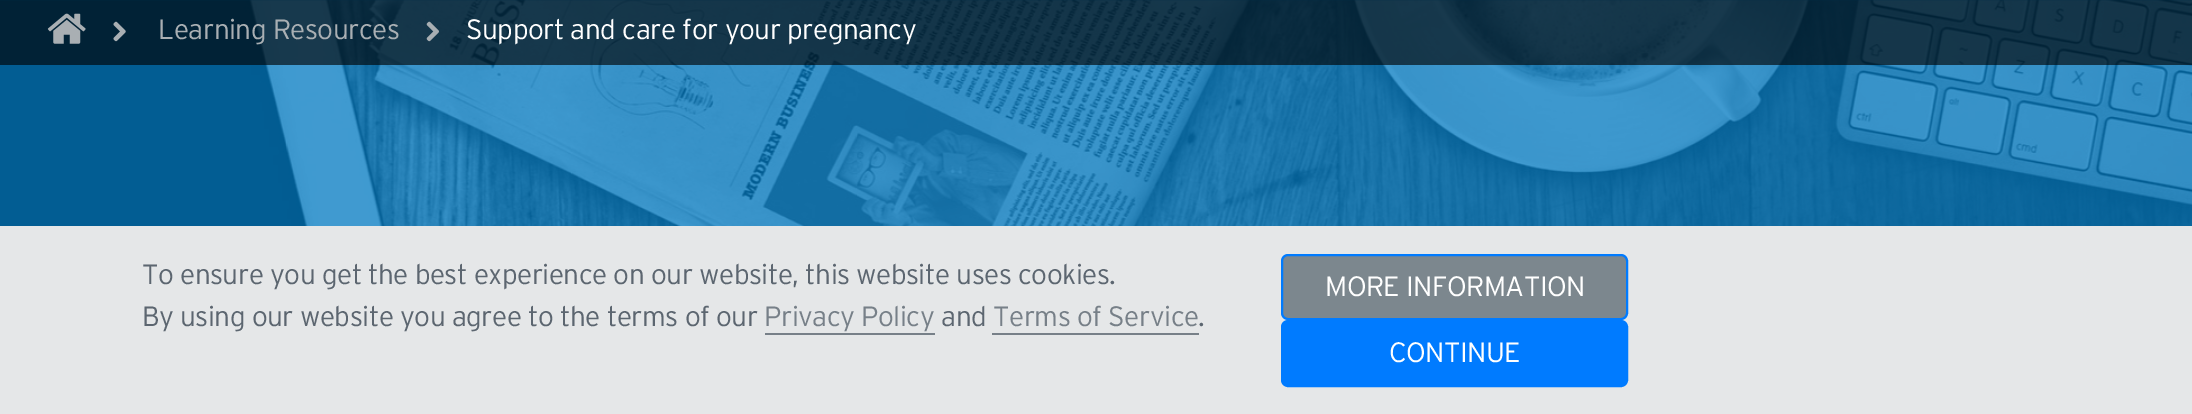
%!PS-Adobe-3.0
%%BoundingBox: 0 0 2192 414
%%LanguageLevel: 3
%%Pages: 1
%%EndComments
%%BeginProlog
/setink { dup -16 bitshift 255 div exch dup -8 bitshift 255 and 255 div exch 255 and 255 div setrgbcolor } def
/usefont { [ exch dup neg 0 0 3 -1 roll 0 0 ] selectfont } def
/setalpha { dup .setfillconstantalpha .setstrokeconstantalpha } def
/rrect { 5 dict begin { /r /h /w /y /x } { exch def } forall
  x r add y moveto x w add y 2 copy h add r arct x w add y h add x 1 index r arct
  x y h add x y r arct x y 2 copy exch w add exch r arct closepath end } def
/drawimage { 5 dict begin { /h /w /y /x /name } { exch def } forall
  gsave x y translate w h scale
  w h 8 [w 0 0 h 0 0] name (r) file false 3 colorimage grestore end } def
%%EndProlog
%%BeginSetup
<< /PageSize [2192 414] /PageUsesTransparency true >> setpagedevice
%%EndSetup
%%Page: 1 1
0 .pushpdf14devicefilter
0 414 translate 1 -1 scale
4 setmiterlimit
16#FFFFFF setink
0 0 2192 414 rectfill
(img1.raw) 0 0 2192 226 drawimage
0.63 setalpha
16#000000 setink
0 0 2192 65 rectfill
1 setalpha
(img2.raw) 47 13 39 31 drawimage
(img3.raw) 113 21 13 21 drawimage
/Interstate-Light 28 usefont
16#A9AFB3 setink
158 39 moveto -0.53 0 (Learning Resources) ashow
(img4.raw) 426 21 13 21 drawimage
16#FFFFFF setink
466 39 moveto -0.53 0 (Support and care for your pregnancy) ashow
16#E5E7E8 setink
0 226 2192 188 rectfill
16#5C6670 setink
142 284 moveto -0.53 0 (To ensure you get the best experience on our website, this website uses cookies.) ashow
142 326 moveto -0.53 0 (By using our website you agree to the terms of our) ashow
16#778088 setink
764 326 moveto -0.53 0 (Privacy Policy) ashow
765 333 170 2 rectfill
16#5C6670 setink
941 326 moveto -0.53 0 (and) ashow
16#778088 setink
993 326 moveto -0.53 0 (Terms of Service) ashow
992 333 207 2 rectfill
16#5C6670 setink
1198 326 moveto -0.53 0 (.) ashow
16#7C878E setink
1282 255 345 64 6 rrect gsave fill grestore
16#007BFF setink
2 setlinewidth
stroke
16#FFFFFF setink
1325 296 moveto -0.53 0 (MORE INFORMATION) ashow
16#007BFF setink
1282 321 345 65 6 rrect gsave fill grestore
stroke
16#FFFFFF setink
1389 362 moveto -0.53 0 (CONTINUE) ashow
.poppdf14devicefilter showpage
%%EOF
